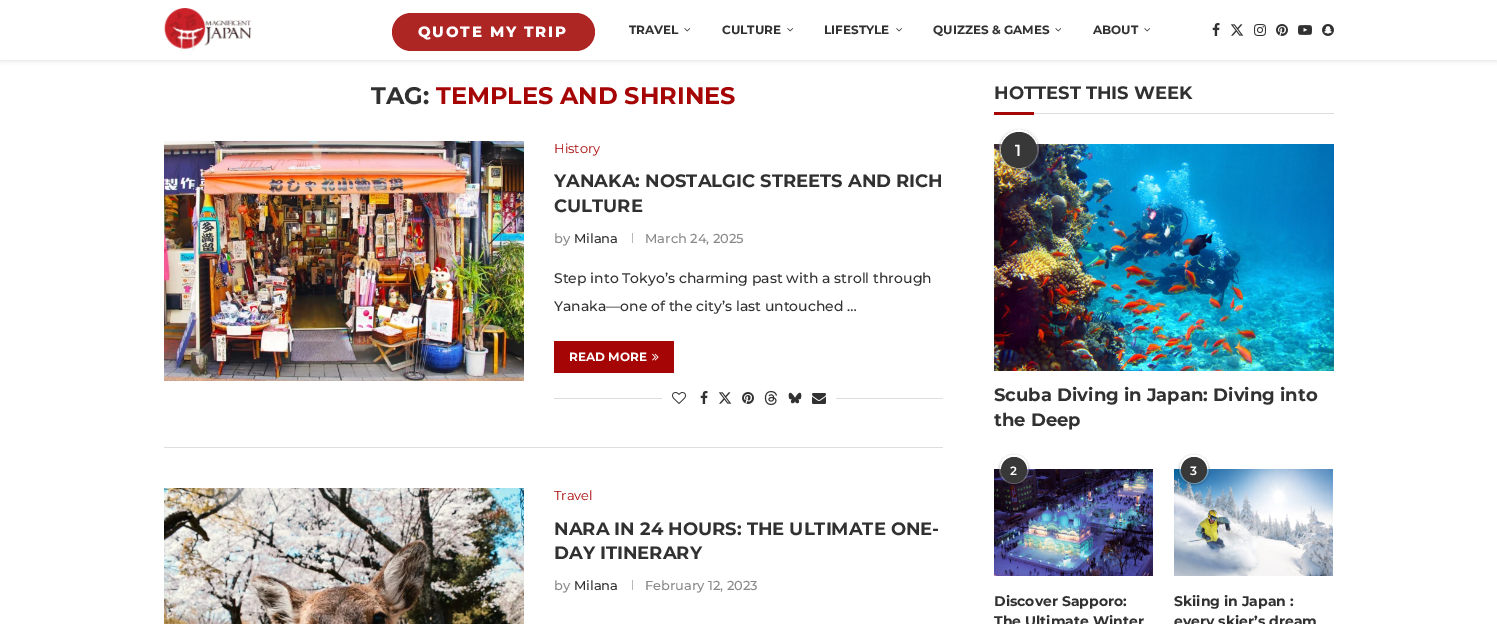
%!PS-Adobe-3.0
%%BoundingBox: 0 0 1497 624
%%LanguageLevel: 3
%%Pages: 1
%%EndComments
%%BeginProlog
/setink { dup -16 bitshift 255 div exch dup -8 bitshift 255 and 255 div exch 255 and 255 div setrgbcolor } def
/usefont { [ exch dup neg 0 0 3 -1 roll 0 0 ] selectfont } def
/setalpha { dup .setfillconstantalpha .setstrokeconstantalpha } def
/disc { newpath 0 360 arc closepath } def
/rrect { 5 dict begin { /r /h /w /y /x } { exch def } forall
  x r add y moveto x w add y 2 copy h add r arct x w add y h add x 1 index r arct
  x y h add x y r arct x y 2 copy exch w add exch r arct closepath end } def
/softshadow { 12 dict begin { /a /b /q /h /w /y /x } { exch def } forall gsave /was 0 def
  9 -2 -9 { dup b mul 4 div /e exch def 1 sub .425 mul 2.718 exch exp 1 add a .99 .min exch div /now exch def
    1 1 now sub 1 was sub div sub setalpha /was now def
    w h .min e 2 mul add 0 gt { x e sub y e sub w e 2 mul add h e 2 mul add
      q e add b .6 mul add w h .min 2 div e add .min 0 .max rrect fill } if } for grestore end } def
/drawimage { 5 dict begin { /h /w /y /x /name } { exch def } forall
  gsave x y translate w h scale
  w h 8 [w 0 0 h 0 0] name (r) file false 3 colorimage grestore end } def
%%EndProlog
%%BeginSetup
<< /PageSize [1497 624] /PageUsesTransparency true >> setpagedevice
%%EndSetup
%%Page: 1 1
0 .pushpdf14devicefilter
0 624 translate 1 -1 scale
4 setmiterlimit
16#FFFFFF setink
0 0 1497 624 rectfill
gsave
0 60 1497 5 rectclip
16#BEBEBE setink
0 1 1497 60 0 2.5 0.46 softshadow
grestore
(img1.raw) 164 8 88 43 drawimage
16#AD2624 setink
392 13 203 38 19 rrect fill
/Montserrat-ExtraBold 15 usefont
16#FFFFFF setink
418 37 moveto 1.75 0 (QUOTE MY TRIP) ashow
/Montserrat-Bold 12 usefont
16#313131 setink
629 34 moveto (TRAVEL) show
(img2.raw) 684 28 7 4 drawimage
722 34 moveto (CULTURE) show
(img3.raw) 787 28 6 4 drawimage
824 34 moveto (LIFESTYLE) show
(img4.raw) 896 28 6 4 drawimage
933 34 moveto (QUIZZES & GAMES) show
(img5.raw) 1055 28 7 4 drawimage
1093 34 moveto (ABOUT) show
(img6.raw) 1144 28 7 4 drawimage
(img7.raw) 1212 23 8 13 drawimage
(img8.raw) 1230 24 14 12 drawimage
(img9.raw) 1254 24 12 12 drawimage
(img10.raw) 1276 24 12 12 drawimage
(img11.raw) 1298 25 14 10 drawimage
(img12.raw) 1322 24 12 12 drawimage
/Montserrat-Bold 24 usefont
371 104 moveto (TAG:) show
16#A60505 setink
436 104 moveto (TEMPLES AND SHRINES) show
16#DEDEDE setink
164 447 779 1 rectfill
(img13.raw) 164 141 360 240 drawimage
/Montserrat-Regular 13 usefont
16#A60505 setink
554 153 moveto (History) show
/Montserrat-Bold 18 usefont
16#313131 setink
554 187 moveto (YANAKA: NOSTALGIC STREETS AND RICH) show
554 212 moveto (CULTURE) show
/Montserrat-Medium 13 usefont
16#888888 setink
554 243 moveto (by) show
16#313131 setink
574 243 moveto (Milana) show
16#B8B8B8 setink
632 233 1 10 rectfill
16#888888 setink
645 243 moveto (March 24, 2025) show
/Montserrat-Medium 14 usefont
16#313131 setink
554 283 moveto (Step into Tokyo’s charming past with a stroll through) show
554 311 moveto (Yanaka—one of the city’s last untouched …) show
16#A60505 setink
554 341 120 32 rectfill
/Montserrat-Bold 12 usefont
16#FFFFFF setink
569 361 moveto (READ MORE) show
(img14.raw) 652 353 7 8 drawimage
16#DEDEDE setink
554 398 389 1 rectfill
16#FFFFFF setink
662 398 174 1 rectfill
(img15.raw) 672 392 14 12 drawimage
(img7.raw) 700 391 8 13 drawimage
(img8.raw) 718 392 14 12 drawimage
(img10.raw) 742 392 12 12 drawimage
(img16.raw) 764 391 14 14 drawimage
(img17.raw) 788 392 14 12 drawimage
(img18.raw) 812 393 14 11 drawimage
(img19.raw) 164 488 360 136 drawimage
/Montserrat-Regular 13 usefont
16#A60505 setink
554 500 moveto (Travel) show
/Montserrat-Bold 18 usefont
16#313131 setink
554 535 moveto (NARA IN 24 HOURS: THE ULTIMATE ONE-) show
554 559 moveto (DAY ITINERARY) show
/Montserrat-Medium 13 usefont
16#888888 setink
554 590 moveto (by) show
16#313131 setink
574 590 moveto (Milana) show
16#B8B8B8 setink
632 580 1 10 rectfill
16#888888 setink
645 590 moveto (February 12, 2023) show
16#DEDEDE setink
1034 113 300 1 rectfill
/Montserrat-Bold 18 usefont
16#313131 setink
994 99 moveto (HOTTEST THIS WEEK) show
16#A60505 setink
994 112 40 3 rectfill
(img20.raw) 994 144 340 227 drawimage
gsave
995 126 moveto 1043 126 lineto 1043 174 lineto 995 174 lineto closepath 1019 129 moveto 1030 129 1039 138 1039 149 curveto 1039 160 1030 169 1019 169 curveto 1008 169 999 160 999 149 curveto 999 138 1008 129 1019 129 curveto closepath eoclip newpath
16#000000 setink
999 130 40 40 20 1 0.25 softshadow
grestore
0.3 setalpha
16#FFFFFF setink
1019 149 20 disc fill
1 setalpha
16#383838 setink
1019 150 18 disc fill
/Montserrat-SemiBold 16 usefont
16#FFFFFF setink
1015 156 moveto (1) show
/Montserrat-Bold 18 usefont
16#313131 setink
994 401 moveto (Scuba Diving in Japan: Diving into) show
gsave
994 383 340 56 rectclip
994 426 moveto (the Deep) show
grestore
(img21.raw) 994 469 159 107 drawimage
gsave
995 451 moveto 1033 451 lineto 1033 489 lineto 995 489 lineto closepath 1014 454 moveto 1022.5 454 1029 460.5 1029 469 curveto 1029 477.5 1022.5 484 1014 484 curveto 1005.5 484 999 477.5 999 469 curveto 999 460.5 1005.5 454 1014 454 curveto closepath eoclip newpath
16#000000 setink
999 455 30 30 15 1 0.25 softshadow
grestore
0.3 setalpha
16#FFFFFF setink
1014 469 15 disc fill
1 setalpha
16#383838 setink
1014 470 13 disc fill
/Montserrat-SemiBold 12 usefont
16#FFFFFF setink
1010 475 moveto (2) show
/Montserrat-Bold 14 usefont
16#313131 setink
994 606 moveto (Discover Sapporo:) show
994 626 moveto (The Ultimate Winter) show
(img22.raw) 1174 469 159 107 drawimage
gsave
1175 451 moveto 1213 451 lineto 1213 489 lineto 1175 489 lineto closepath 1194 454 moveto 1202.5 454 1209 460.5 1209 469 curveto 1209 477.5 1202.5 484 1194 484 curveto 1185.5 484 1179 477.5 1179 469 curveto 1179 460.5 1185.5 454 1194 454 curveto closepath eoclip newpath
16#000000 setink
1179 455 30 30 15 1 0.25 softshadow
grestore
0.3 setalpha
16#FFFFFF setink
1194 469 15 disc fill
1 setalpha
16#383838 setink
1194 470 13 disc fill
/Montserrat-SemiBold 12 usefont
16#FFFFFF setink
1190 475 moveto (3) show
/Montserrat-Bold 14 usefont
16#313131 setink
1174 606 moveto (Skiing in Japan :) show
1174 626 moveto (every skier’s dream) show
.poppdf14devicefilter showpage
%%EOF
